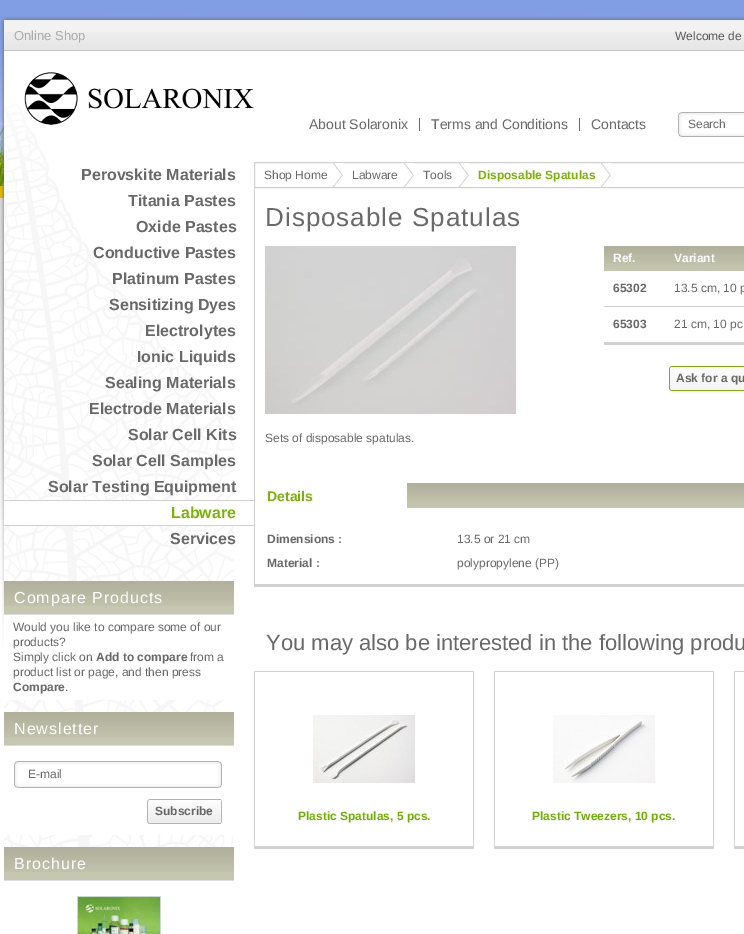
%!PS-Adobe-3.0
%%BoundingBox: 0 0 744 934
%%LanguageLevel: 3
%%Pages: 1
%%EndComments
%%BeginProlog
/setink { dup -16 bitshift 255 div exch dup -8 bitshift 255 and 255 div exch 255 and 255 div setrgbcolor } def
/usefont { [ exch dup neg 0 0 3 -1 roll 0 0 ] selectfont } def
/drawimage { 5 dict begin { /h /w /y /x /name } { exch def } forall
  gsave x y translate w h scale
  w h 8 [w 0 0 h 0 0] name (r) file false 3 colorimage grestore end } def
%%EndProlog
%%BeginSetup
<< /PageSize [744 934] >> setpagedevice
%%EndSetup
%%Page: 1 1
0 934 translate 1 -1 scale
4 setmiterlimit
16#FFFFFF setink
0 0 744 934 rectfill
(img1.raw) 0 0 744 520 drawimage
(img2.raw) 0 16 744 632 drawimage
(img3.raw) 4 104 230 743 drawimage
16#F2F2F3 setink
4 20 740 12 rectfill
(img4.raw) 4 32 740 19 drawimage
/LiberationSans-Regular 13 usefont
16#ABABAB setink
14 40 moveto (Online Shop) show
/LiberationSans-Regular 12 usefont
16#5A5A5A setink
675 40 moveto (Welcome de) show
(img5.raw) 24 72 230 53 drawimage
/LiberationSans-Regular 14 usefont
16#696969 setink
309 129 moveto (About Solaronix) show
419 118 1 13 rectfill
431 129 moveto (Terms and Conditions) show
579 118 1 13 rectfill
591 129 moveto (Contacts) show
(img6.raw) 678 112 66 25 drawimage
/LiberationSans-Regular 12 usefont
688 128 moveto (Search) show
/LiberationSans-Bold 16 usefont
[
    [(Perovskite Materials) 81 180]
    [(Titania Pastes) 128 206]
    [(Oxide Pastes) 136 232]
    [(Conductive Pastes) 93 258]
    [(Platinum Pastes) 112 284]
    [(Sensitizing Dyes) 109 310]
    [(Electrolytes) 145 336]
    [(Ionic Liquids) 137 362]
    [(Sealing Materials) 105 388]
    [(Electrode Materials) 89 414]
    [(Solar Cell Kits) 128 440]
    [(Solar Cell Samples) 92 466]
    [(Solar Testing Equipment) 48 492]
] { aload pop moveto show } forall
16#FFFFFF setink
4 501 230 24 rectfill
16#D2D2D2 setink
254.5 162.5 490 25 rectstroke
[
    [254 584 490 3 16#D2D2D2]
    [254 187 1 400 16#D2D2D2]
    [4 500 251 1 16#D2D2D2]
    [4 525 251 1 16#D2D2D2]
] { aload pop setink rectfill } forall
16#79B307 setink
171 518 moveto (Labware) show
16#696969 setink
170 544 moveto (Services) show
16#FFFFFF setink
4 615 230 85 rectfill
16#C6C7B0 setink
4 606 230 8 rectfill
(img7.raw) 4 581 230 25 drawimage
16#DDDDDD setink
4 614 230 1 rectfill
/LiberationSans-Regular 16 usefont
16#FFFFFF setink
14 603 moveto 1 0 (Compare Products) ashow
/LiberationSans-Regular 12 usefont
16#696969 setink
[
    [(Would you like to compare some of our) 13 631]
    [(products?) 13 646]
    [(Simply click on) 13 661]
] { aload pop moveto show } forall
/LiberationSans-Bold 12 usefont
96 661 moveto (Add to compare) show
/LiberationSans-Regular 12 usefont
190 661 moveto (from a) show
13 676 moveto (product list or page, and then press) show
/LiberationSans-Bold 12 usefont
13 691 moveto (Compare) show
/LiberationSans-Regular 12 usefont
65 691 moveto (.) show
16#FFFFFF setink
4 746 230 89 rectfill
16#C6C7B0 setink
4 737 230 8 rectfill
(img7.raw) 4 712 230 25 drawimage
16#DDDDDD setink
4 745 230 1 rectfill
/LiberationSans-Regular 16 usefont
16#FFFFFF setink
14 734 moveto 1 0 (Newsletter) ashow
(img8.raw) 14 761 208 27 drawimage
/LiberationSans-Regular 12 usefont
16#696969 setink
28 778 moveto (E-mail) show
(img9.raw) 221 799 1 25 drawimage
(img10.raw) 147 799 74 25 drawimage
/LiberationSans-Bold 12 usefont
155 815 moveto (Subscribe) show
16#C6C7B0 setink
4 872 230 8 rectfill
(img7.raw) 4 847 230 25 drawimage
16#DDDDDD setink
4 880 230 1 rectfill
/LiberationSans-Regular 16 usefont
16#FFFFFF setink
14 869 moveto 1 0 (Brochure) ashow
(img11.raw) 77 896 84 38 drawimage
(img12.raw) 332 163 11 24 drawimage
/LiberationSans-Regular 12 usefont
16#696969 setink
264 179 moveto (Shop Home) show
(img12.raw) 403 163 11 24 drawimage
352 179 moveto (Labware) show
(img12.raw) 458 163 11 24 drawimage
423 179 moveto (Tools) show
(img12.raw) 600 163 11 24 drawimage
/LiberationSans-Bold 12 usefont
16#79B307 setink
478 179 moveto (Disposable Spatulas) show
/LiberationSans-Regular 26 usefont
16#696969 setink
265 226 moveto 1 0 (Disposable Spatulas) ashow
16#D2D2D2 setink
604 342 140 3 rectfill
(img13.raw) 604 246 61 25 drawimage
/LiberationSans-Bold 12 usefont
16#FFFFFF setink
613 262 moveto (Ref.) show
(img14.raw) 665 246 79 25 drawimage
674 262 moveto (Variant) show
16#696969 setink
613 292 moveto (65302) show
16#D2D2D2 setink
604 306 140 1 rectfill
/LiberationSans-Regular 12 usefont
16#696969 setink
674 292 moveto (13.5 cm, 10 p) show
/LiberationSans-Bold 12 usefont
613 328 moveto (65303) show
/LiberationSans-Regular 12 usefont
674 328 moveto (21 cm, 10 pc) show
(img15.raw) 669 366 75 25 drawimage
/LiberationSans-Bold 12 usefont
676 382 moveto (Ask for a qu) show
(img16.raw) 265 246 251 168 drawimage
/LiberationSans-Regular 12 usefont
265 442 moveto (Sets of disposable spatulas.) show
(img17.raw) 407 483 337 25 drawimage
/LiberationSans-Bold 14 usefont
16#79B307 setink
267 501 moveto (Details) show
/LiberationSans-Bold 12 usefont
16#696969 setink
267 543 moveto (Dimensions :) show
/LiberationSans-Regular 12 usefont
457 543 moveto (13.5 or 21 cm) show
/LiberationSans-Bold 12 usefont
267 567 moveto (Material :) show
/LiberationSans-Regular 12 usefont
457 567 moveto (polypropylene \(PP\)) show
/LiberationSans-Regular 22 usefont
266 650 moveto (You may also be interested in the following produ) show
[
    [254 671 220 1 16#D2D2D2]
    [473 671 1 178 16#D2D2D2]
    [254 846 220 3 16#D2D2D2]
    [254 671 1 178 16#D2D2D2]
] { aload pop setink rectfill } forall
(img18.raw) 313 715 102 68 drawimage
/LiberationSans-Bold 12 usefont
16#6FB100 setink
298 820 moveto (Plastic Spatulas, 5 pcs.) show
[
    [494 671 220 1 16#D2D2D2]
    [713 671 1 178 16#D2D2D2]
    [494 846 220 3 16#D2D2D2]
    [494 671 1 178 16#D2D2D2]
] { aload pop setink rectfill } forall
(img19.raw) 553 715 102 68 drawimage
16#6FB100 setink
532 820 moveto (Plastic Tweezers, 10 pcs.) show
[
    [734 671 10 1 16#D2D2D2]
    [734 846 10 3 16#D2D2D2]
    [734 671 1 178 16#D2D2D2]
] { aload pop setink rectfill } forall
showpage
%%EOF
